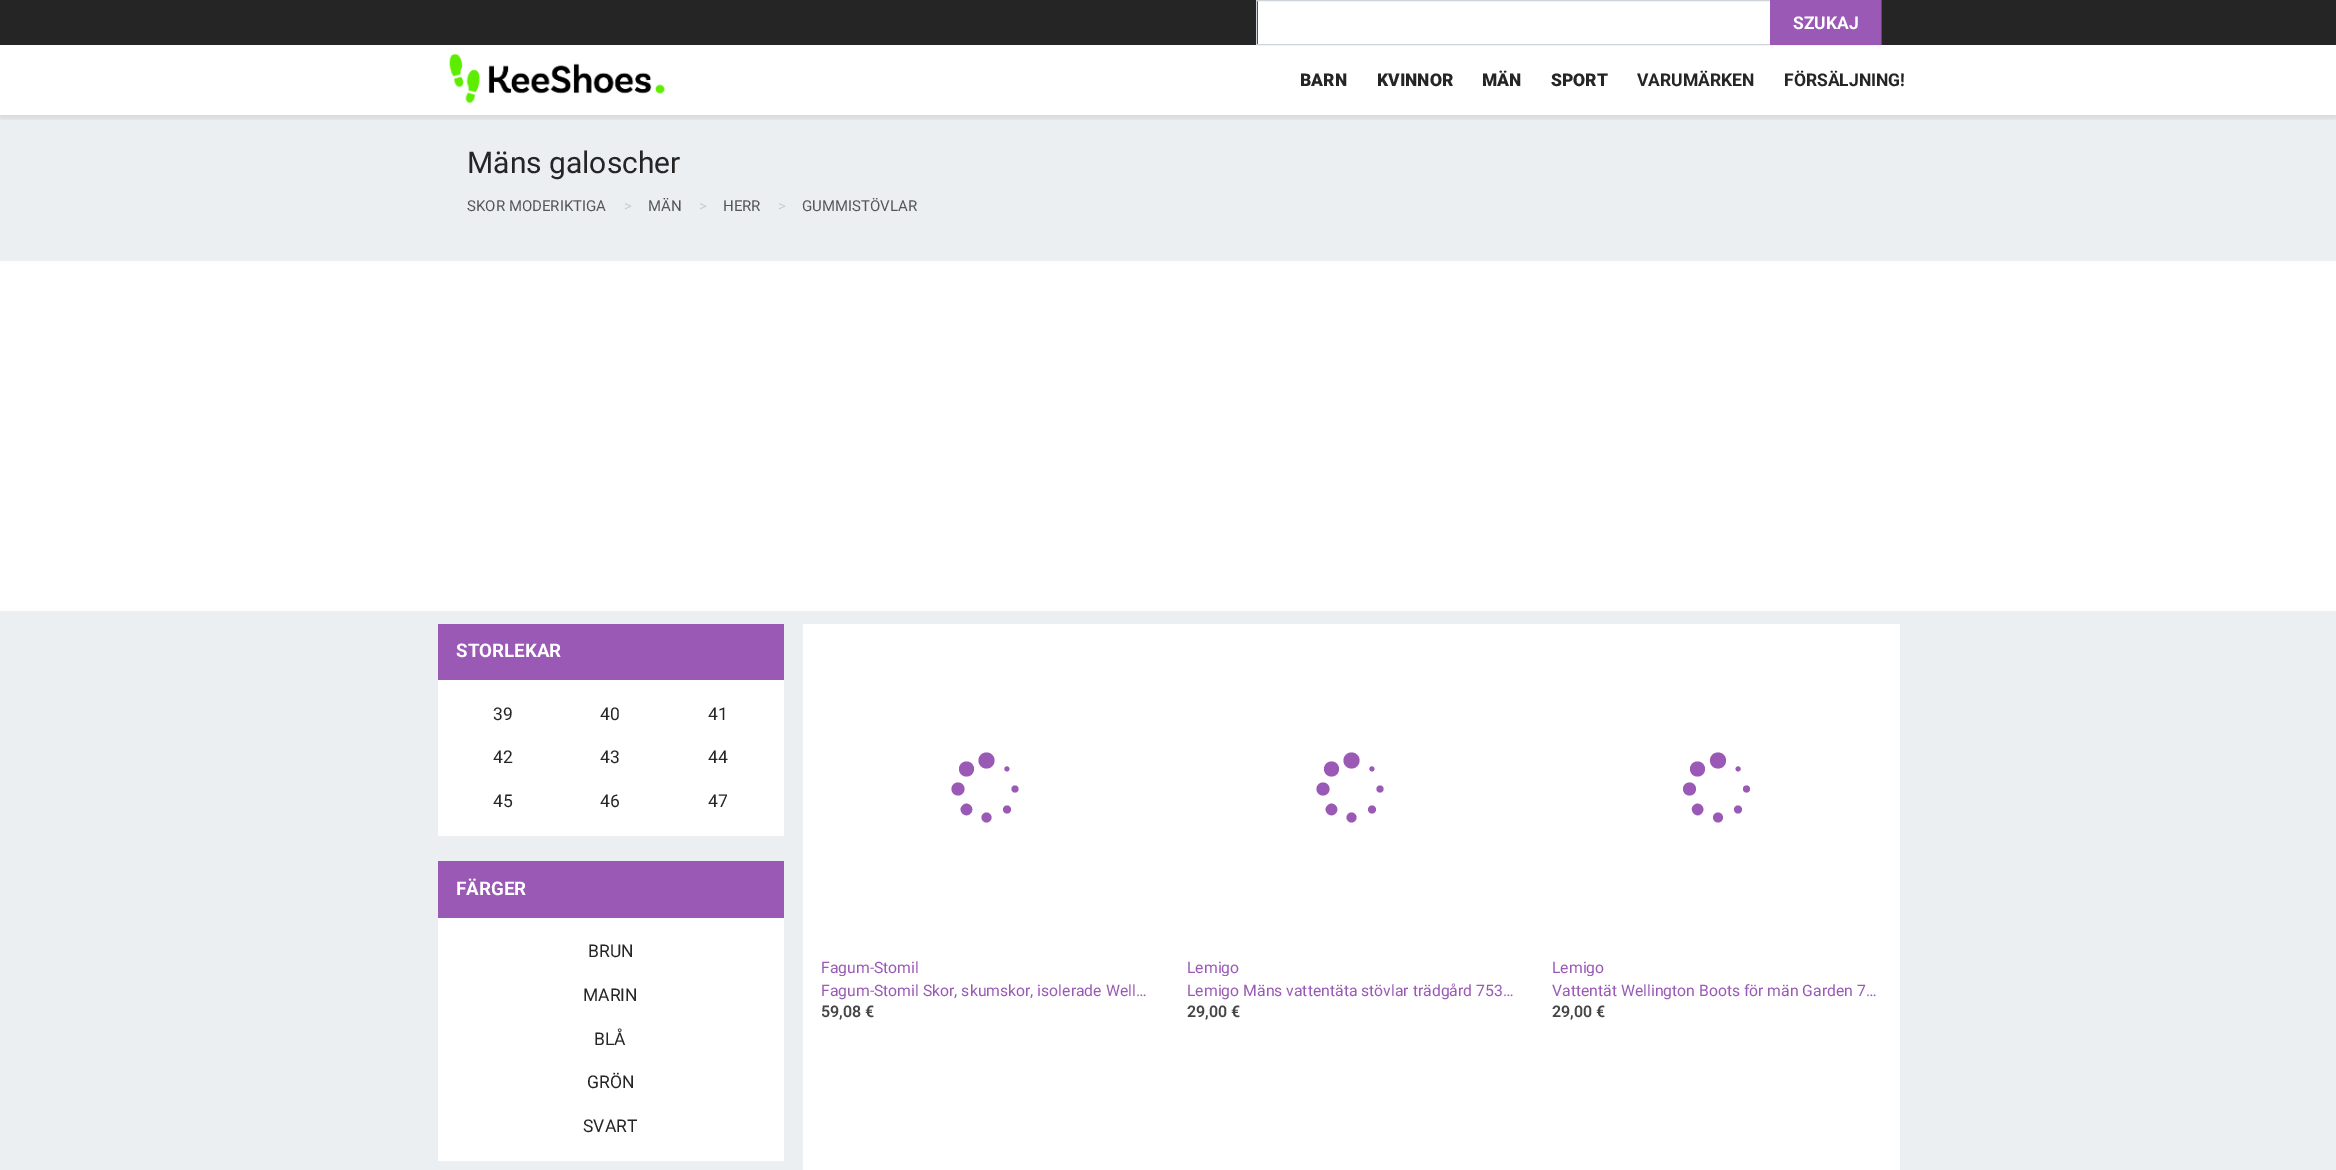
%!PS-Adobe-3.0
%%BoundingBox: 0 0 2336 1170
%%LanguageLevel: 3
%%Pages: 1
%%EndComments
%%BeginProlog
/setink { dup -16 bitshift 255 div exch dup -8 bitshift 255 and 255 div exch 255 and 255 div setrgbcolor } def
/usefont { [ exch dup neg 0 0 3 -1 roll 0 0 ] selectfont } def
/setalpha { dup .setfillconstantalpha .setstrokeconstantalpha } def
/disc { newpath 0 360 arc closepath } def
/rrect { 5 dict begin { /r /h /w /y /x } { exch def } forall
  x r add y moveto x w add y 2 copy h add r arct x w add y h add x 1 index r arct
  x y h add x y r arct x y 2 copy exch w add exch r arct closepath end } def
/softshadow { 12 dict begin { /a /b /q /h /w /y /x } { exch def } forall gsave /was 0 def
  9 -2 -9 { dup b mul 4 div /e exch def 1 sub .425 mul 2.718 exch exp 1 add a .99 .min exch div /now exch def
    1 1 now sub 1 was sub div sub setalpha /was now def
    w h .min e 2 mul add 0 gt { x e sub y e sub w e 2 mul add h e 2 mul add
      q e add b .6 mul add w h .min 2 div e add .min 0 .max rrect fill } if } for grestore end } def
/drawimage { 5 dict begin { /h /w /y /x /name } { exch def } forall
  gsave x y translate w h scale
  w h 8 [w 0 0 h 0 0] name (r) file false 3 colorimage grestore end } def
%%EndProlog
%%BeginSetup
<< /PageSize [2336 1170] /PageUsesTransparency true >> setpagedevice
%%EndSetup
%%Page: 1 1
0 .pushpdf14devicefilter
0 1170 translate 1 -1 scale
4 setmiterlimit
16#FFFFFF setink
0 0 2336 1170 rectfill
16#252525 setink
0 0 2336 45 rectfill
16#FFFFFF setink
1258 1 512 43 rectfill
16#CED4DA setink
1256.5 0.5 624 44 rectstroke
16#ECEFF1 setink
0 115 2336 146 rectfill
gsave
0 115 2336 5 rectclip
16#000000 setink
0 48 2336 70 0 2.5 0.1 softshadow
grestore
16#9B59B6 setink
1770 0 111 45 rectfill
/Roboto-Bold 17.5 usefont
16#FFFFFF setink
1793 29 moveto (SZUKAJ) show
(img1.raw) 448 54 218 50 drawimage
/Roboto-Black 17.5 usefont
16#252525 setink
[
    [(BARN) 1300 86]
    [(KVINNOR) 1377 86]
    [(MÄN) 1482 86]
    [(SPORT) 1551 86]
] { aload pop moveto show } forall
/Roboto-Bold 17.5 usefont
1637 86 moveto (VARUMÄRKEN) show
1784 86 moveto (FÖRSÄLJNING!) show
/Roboto-Regular 30 usefont
467 173 moveto (Mäns galoscher) show
/Roboto-Regular 15 usefont
16#565656 setink
467 211 moveto (SKOR MODERIKTIGA) show
16#CCCCCC setink
624 211 moveto (>) show
16#565656 setink
648 211 moveto (MÄN) show
16#CCCCCC setink
699 211 moveto (>) show
16#565656 setink
723 211 moveto (HERR) show
16#CCCCCC setink
778 211 moveto (>) show
16#565656 setink
802 211 moveto (GUMMISTÖVLAR) show
[
    [0 611 2336 559 16#ECEFF1]
    [438 680 346 156 16#FFFFFF]
    [438 624 346 56 16#9B59B6]
] { aload pop setink rectfill } forall
/Roboto-Bold 18.75 usefont
16#FFFFFF setink
456 657 moveto (STORLEKAR) show
/Roboto-Regular 17.5 usefont
16#252525 setink
[
    [(39) 493 720]
    [(40) 600 720]
    [(41) 708 720]
    [(42) 493 763]
    [(43) 600 763]
    [(44) 708 763]
    [(45) 493 807]
    [(46) 600 807]
    [(47) 708 807]
] { aload pop moveto show } forall
16#FFFFFF setink
438 918 346 243 rectfill
16#9B59B6 setink
438 861 346 57 rectfill
/Roboto-Bold 18.75 usefont
16#FFFFFF setink
456 895 moveto (FÄRGER) show
/Roboto-Regular 17.5 usefont
16#252525 setink
[
    [(BRUN) 588 957]
    [(MARIN) 583 1001]
    [(BLÅ) 594 1045]
    [(GRÖN) 587 1088]
    [(SVART) 583 1132]
] { aload pop moveto show } forall
16#FFFFFF setink
803 624 1097 546 rectfill
16#9B59B6 setink
966.5 769 7.5 disc fill
986.5 760.5 8 disc fill
1006.9 768.9 2.5 disc fill
958 789 6.5 disc fill
1015 789 3.5 disc fill
962.5 805.5 moveto 957 810.5 965 819 970.5 813.5 curveto 976 808 967.5 800 962.5 805.5 curveto closepath fill
1007 809.5 4 disc fill
986.5 817.5 5 disc fill
gsave
821 958 328 18 rectclip
/Roboto-Regular 15.75 usefont
821 973 moveto (Fagum-Stomil) show
grestore
/Roboto-Regular 15.75 usefont
821 996 moveto (Fagum-Stomil Skor, skumskor, isolerade Well…) show
/Roboto-SemiBold 16 usefont
16#454545 setink
821 1017 moveto (59,08 €) show
16#9B59B6 setink
1331.5 769 7.5 disc fill
1351.5 760.5 8 disc fill
1371.9 768.9 2.5 disc fill
1323 789 6.5 disc fill
1380 789 3.5 disc fill
1327.5 805.5 moveto 1322 810.5 1330 819 1335.5 813.5 curveto 1341 808 1332.5 800 1327.5 805.5 curveto closepath fill
1372 809.5 4 disc fill
1351.5 817.5 5 disc fill
gsave
1186 958 329 18 rectclip
/Roboto-Regular 15.75 usefont
1187 973 moveto (Lemigo) show
grestore
/Roboto-Regular 15.75 usefont
1187 996 moveto (Lemigo Mäns vattentäta stövlar trädgård 753…) show
/Roboto-SemiBold 16 usefont
16#454545 setink
1187 1017 moveto (29,00 €) show
16#9B59B6 setink
1697.5 769 7.5 disc fill
1718 760.5 8 disc fill
1738.1 768.9 2.5 disc fill
1689.5 789 6.5 disc fill
1746.5 789 3.5 disc fill
1693.5 805.5 moveto 1688.5 810.5 1696.5 819 1701.5 813.5 curveto 1707 808 1699 800 1693.5 805.5 curveto closepath fill
1738 809.5 4 disc fill
1718 817.5 5 disc fill
gsave
1553 958 327 18 rectclip
/Roboto-Regular 15.75 usefont
1552 973 moveto (Lemigo) show
grestore
/Roboto-Regular 15.75 usefont
1552 996 moveto (Vattentät Wellington Boots för män Garden 7…) show
/Roboto-SemiBold 16 usefont
16#454545 setink
1552 1017 moveto (29,00 €) show
.poppdf14devicefilter showpage
%%EOF
